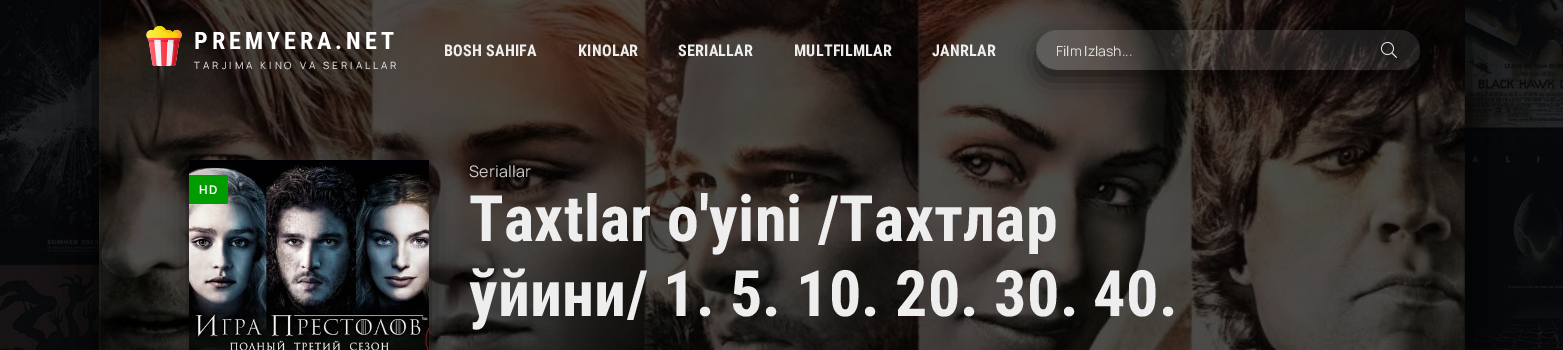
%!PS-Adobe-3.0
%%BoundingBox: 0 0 1563 350
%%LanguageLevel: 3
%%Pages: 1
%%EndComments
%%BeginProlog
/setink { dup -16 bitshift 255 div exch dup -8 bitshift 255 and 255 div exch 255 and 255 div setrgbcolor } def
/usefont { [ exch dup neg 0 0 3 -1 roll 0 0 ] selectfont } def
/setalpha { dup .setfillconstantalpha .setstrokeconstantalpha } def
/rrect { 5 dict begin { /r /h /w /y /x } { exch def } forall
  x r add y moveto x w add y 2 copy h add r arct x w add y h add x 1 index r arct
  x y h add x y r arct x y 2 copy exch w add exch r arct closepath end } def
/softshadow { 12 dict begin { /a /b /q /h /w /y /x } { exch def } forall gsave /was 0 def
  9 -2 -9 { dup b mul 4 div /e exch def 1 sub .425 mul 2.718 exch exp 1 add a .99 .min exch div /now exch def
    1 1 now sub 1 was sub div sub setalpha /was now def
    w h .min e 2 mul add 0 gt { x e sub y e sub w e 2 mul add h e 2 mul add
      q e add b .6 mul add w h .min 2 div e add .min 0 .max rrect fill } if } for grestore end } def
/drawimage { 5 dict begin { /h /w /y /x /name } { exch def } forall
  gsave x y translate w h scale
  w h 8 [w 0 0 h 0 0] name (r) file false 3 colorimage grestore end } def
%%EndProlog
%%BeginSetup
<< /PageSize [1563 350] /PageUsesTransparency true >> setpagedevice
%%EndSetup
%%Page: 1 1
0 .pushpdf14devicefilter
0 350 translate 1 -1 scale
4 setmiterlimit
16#FFFFFF setink
0 0 1563 350 rectfill
(img1.raw) 0 0 1563 350 drawimage
16#000000 setink
99 30 1366 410 0 30 1 softshadow
(img4.raw) 99 0 1366 350 drawimage
(img2.raw) 146 26 36 40 drawimage
/RobotoCondensed-Bold 24 usefont
16#FFFFFF setink
194 49 moveto 4 0 (PREMYERA.NET) ashow
/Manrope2-ExtraLight 10 usefont
16#EEEEEE setink
194 69 moveto 3 0 (TARJIMA KINO VA SERIALLAR) ashow
/RobotoCondensed-Bold 16 usefont
444 56 moveto 0.25 0 (BOSH SAHIFA) ashow
578 56 moveto 0.25 0 (KINOLAR) ashow
678 56 moveto 0.25 0 (SERIALLAR) ashow
794 56 moveto 0.25 0 (MULTFILMLAR) ashow
932 56 moveto 0.25 0 (JANRLAR) ashow
gsave
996 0 moveto 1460 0 lineto 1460 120 lineto 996 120 lineto closepath 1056 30 moveto 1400 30 lineto 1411 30 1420 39 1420 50 curveto 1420 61 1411 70 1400 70 curveto 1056 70 lineto 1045 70 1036 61 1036 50 curveto 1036 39 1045 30 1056 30 curveto closepath eoclip newpath
16#000000 setink
1036 40 384 40 20 13 0.6 softshadow
grestore
0.1 setalpha
16#FFFFFF setink
1036 30 384 40 20 rrect fill
/Manrope2-ExtraLight 14 usefont
1 setalpha
16#DEDCDC setink
1056 56 moveto (Film Izlash...) show
(img3.raw) 1381 42 16 16 drawimage
16#000000 setink
189 170 240 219 0 13 0.6 softshadow
(img5.raw) 189 160 240 190 drawimage
16#009C00 setink
189 175 39 29 rectfill
/Manrope-ExtraLight 12 usefont
16#FFFFFF setink
199 194 moveto 1 0 (HD) ashow
/Manrope2-ExtraLight 16 usefont
16#CCCCCC setink
469 177 moveto 0.25 0 (Seriallar) ashow
/RobotoCondensed-Bold 64 usefont
16#EEEEEE setink
469 241 moveto 0.25 0 (Taxtlar o'yini /Тахтлар) ashow
469 316 moveto 0.25 0 (ўйини/ 1. 5. 10. 20. 30. 40.) ashow
.poppdf14devicefilter showpage
%%EOF
